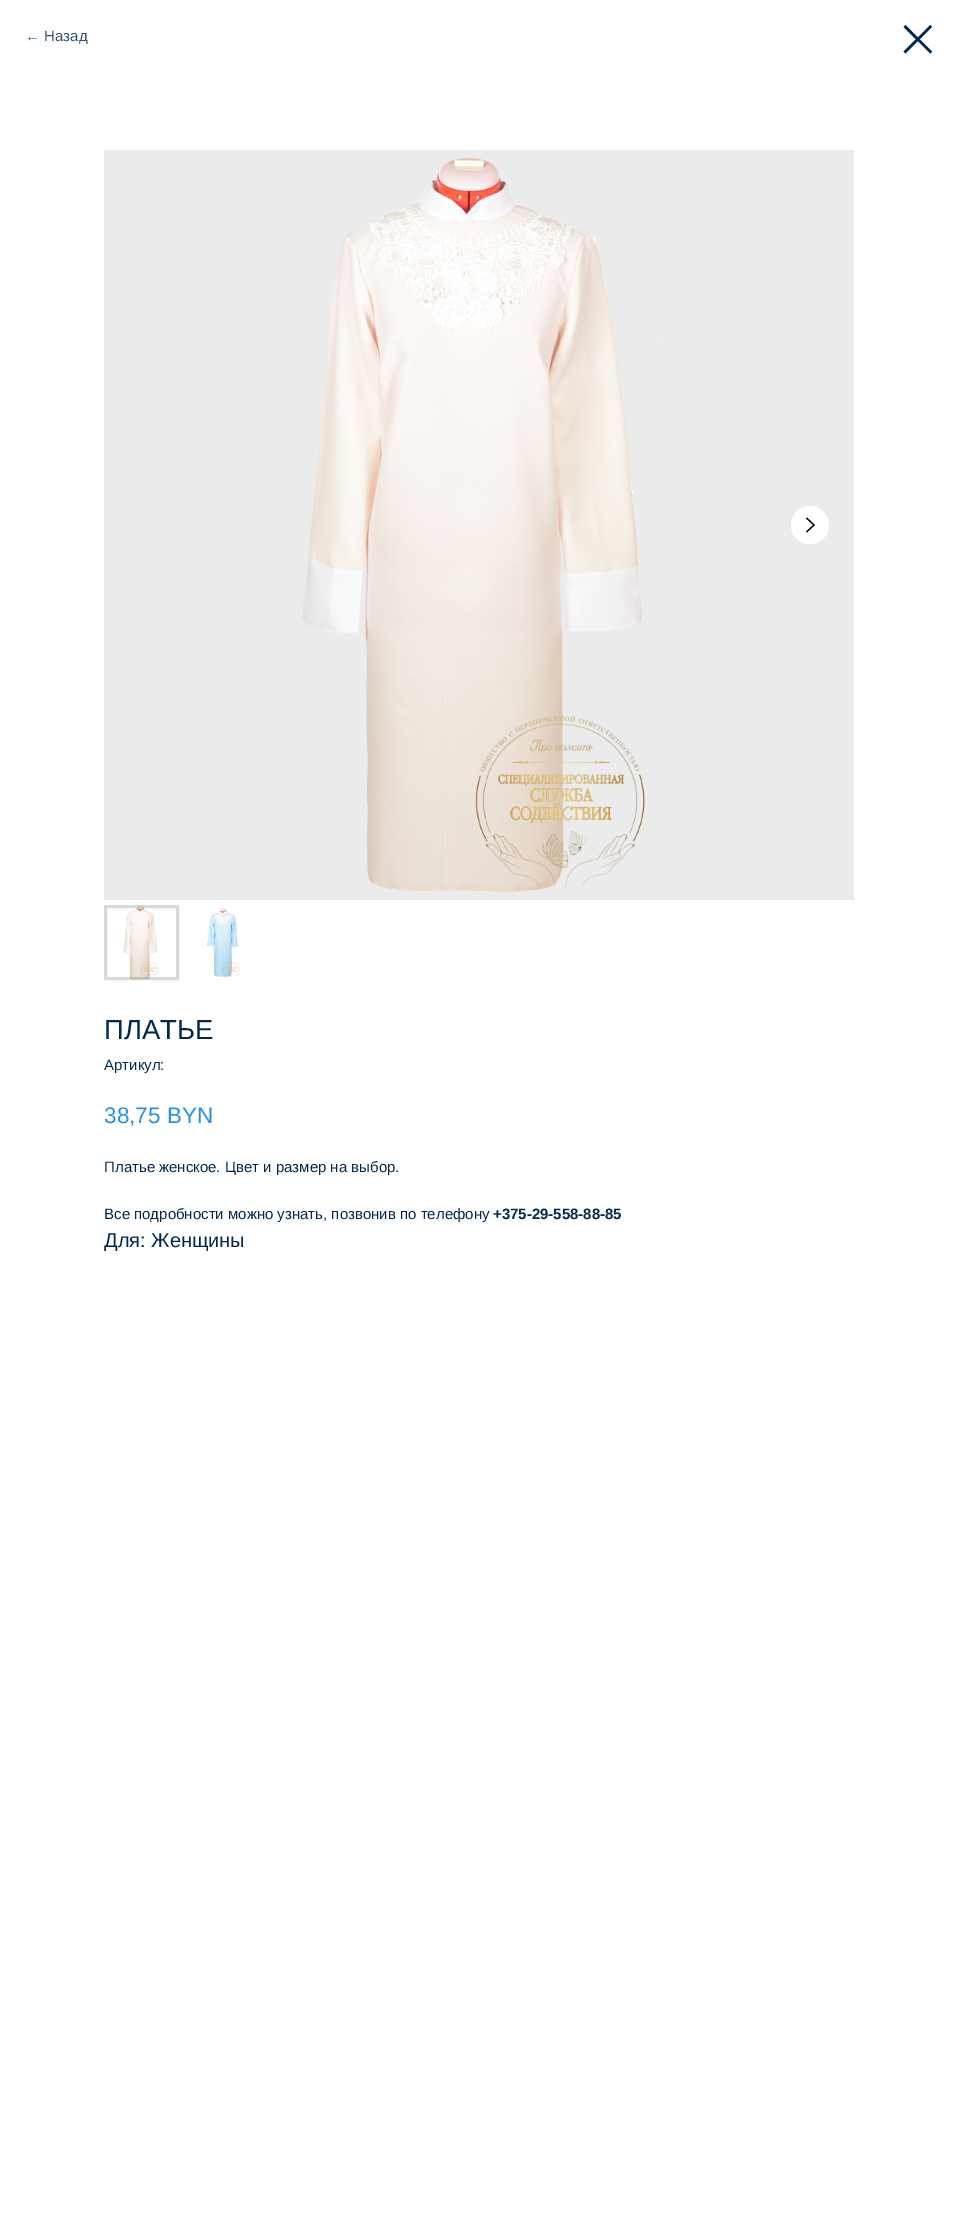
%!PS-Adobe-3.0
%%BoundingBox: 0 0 957 2231
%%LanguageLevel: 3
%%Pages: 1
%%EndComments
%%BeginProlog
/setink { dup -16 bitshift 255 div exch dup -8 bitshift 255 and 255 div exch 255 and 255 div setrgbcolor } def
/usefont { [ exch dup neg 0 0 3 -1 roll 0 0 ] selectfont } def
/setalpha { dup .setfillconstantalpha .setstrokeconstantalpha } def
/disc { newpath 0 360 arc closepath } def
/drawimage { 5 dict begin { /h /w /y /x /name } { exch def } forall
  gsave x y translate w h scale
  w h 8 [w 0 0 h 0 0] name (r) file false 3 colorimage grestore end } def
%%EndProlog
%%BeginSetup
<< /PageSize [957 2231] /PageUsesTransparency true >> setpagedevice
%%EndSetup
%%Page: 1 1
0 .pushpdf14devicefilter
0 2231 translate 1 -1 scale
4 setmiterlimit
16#FFFFFF setink
0 0 957 2231 rectfill
/LiberationSans-Regular 15 usefont
16#335371 setink
25 41 moveto (← Назад) show
16#00284E setink
903.5 27 moveto 905.5 25 lineto 932 51.5 lineto 930.5 53.5 lineto closepath eofill
930.5 25 moveto 932 27 lineto 905.5 53.5 lineto 903.5 51.5 lineto closepath eofill
16#EBEBEB setink
104 150 750 750 rectfill
(img1.raw) 302 158 376 742 drawimage
16#FFFFFF setink
810 525 19 disc fill
16#000000 setink
1.2 setlinewidth
806.5 518 moveto 814 525 lineto 806.5 532 lineto stroke
(img2.raw) 123 905 35 75 drawimage
0.15 setalpha
3 setlinewidth
105.5 906.5 72 72 rectstroke
1 setalpha
(img3.raw) 207 908 33 71 drawimage
/LiberationSans-Regular 27.5 usefont
16#00284E setink
104 1039 moveto (ПЛАТЬЕ) show
/LiberationSans-Regular 15 usefont
104 1070 moveto (Артикул:) show
/LiberationSans-Regular 22.5 usefont
16#2492E9 setink
104 1123 moveto (38,75 BYN) show
/LiberationSans-Regular 15 usefont
16#00284E setink
104 1172 moveto (Платье женское. Цвет и размер на выбор.) show
104 1219 moveto (Все подробности можно узнать, позвонив по телефону) show
/LiberationSans-Bold 15 usefont
493 1219 moveto (+375-29-558-88-85) show
/LiberationSans-Regular 20 usefont
104 1247 moveto (Для: Женщины) show
.poppdf14devicefilter showpage
%%EOF
